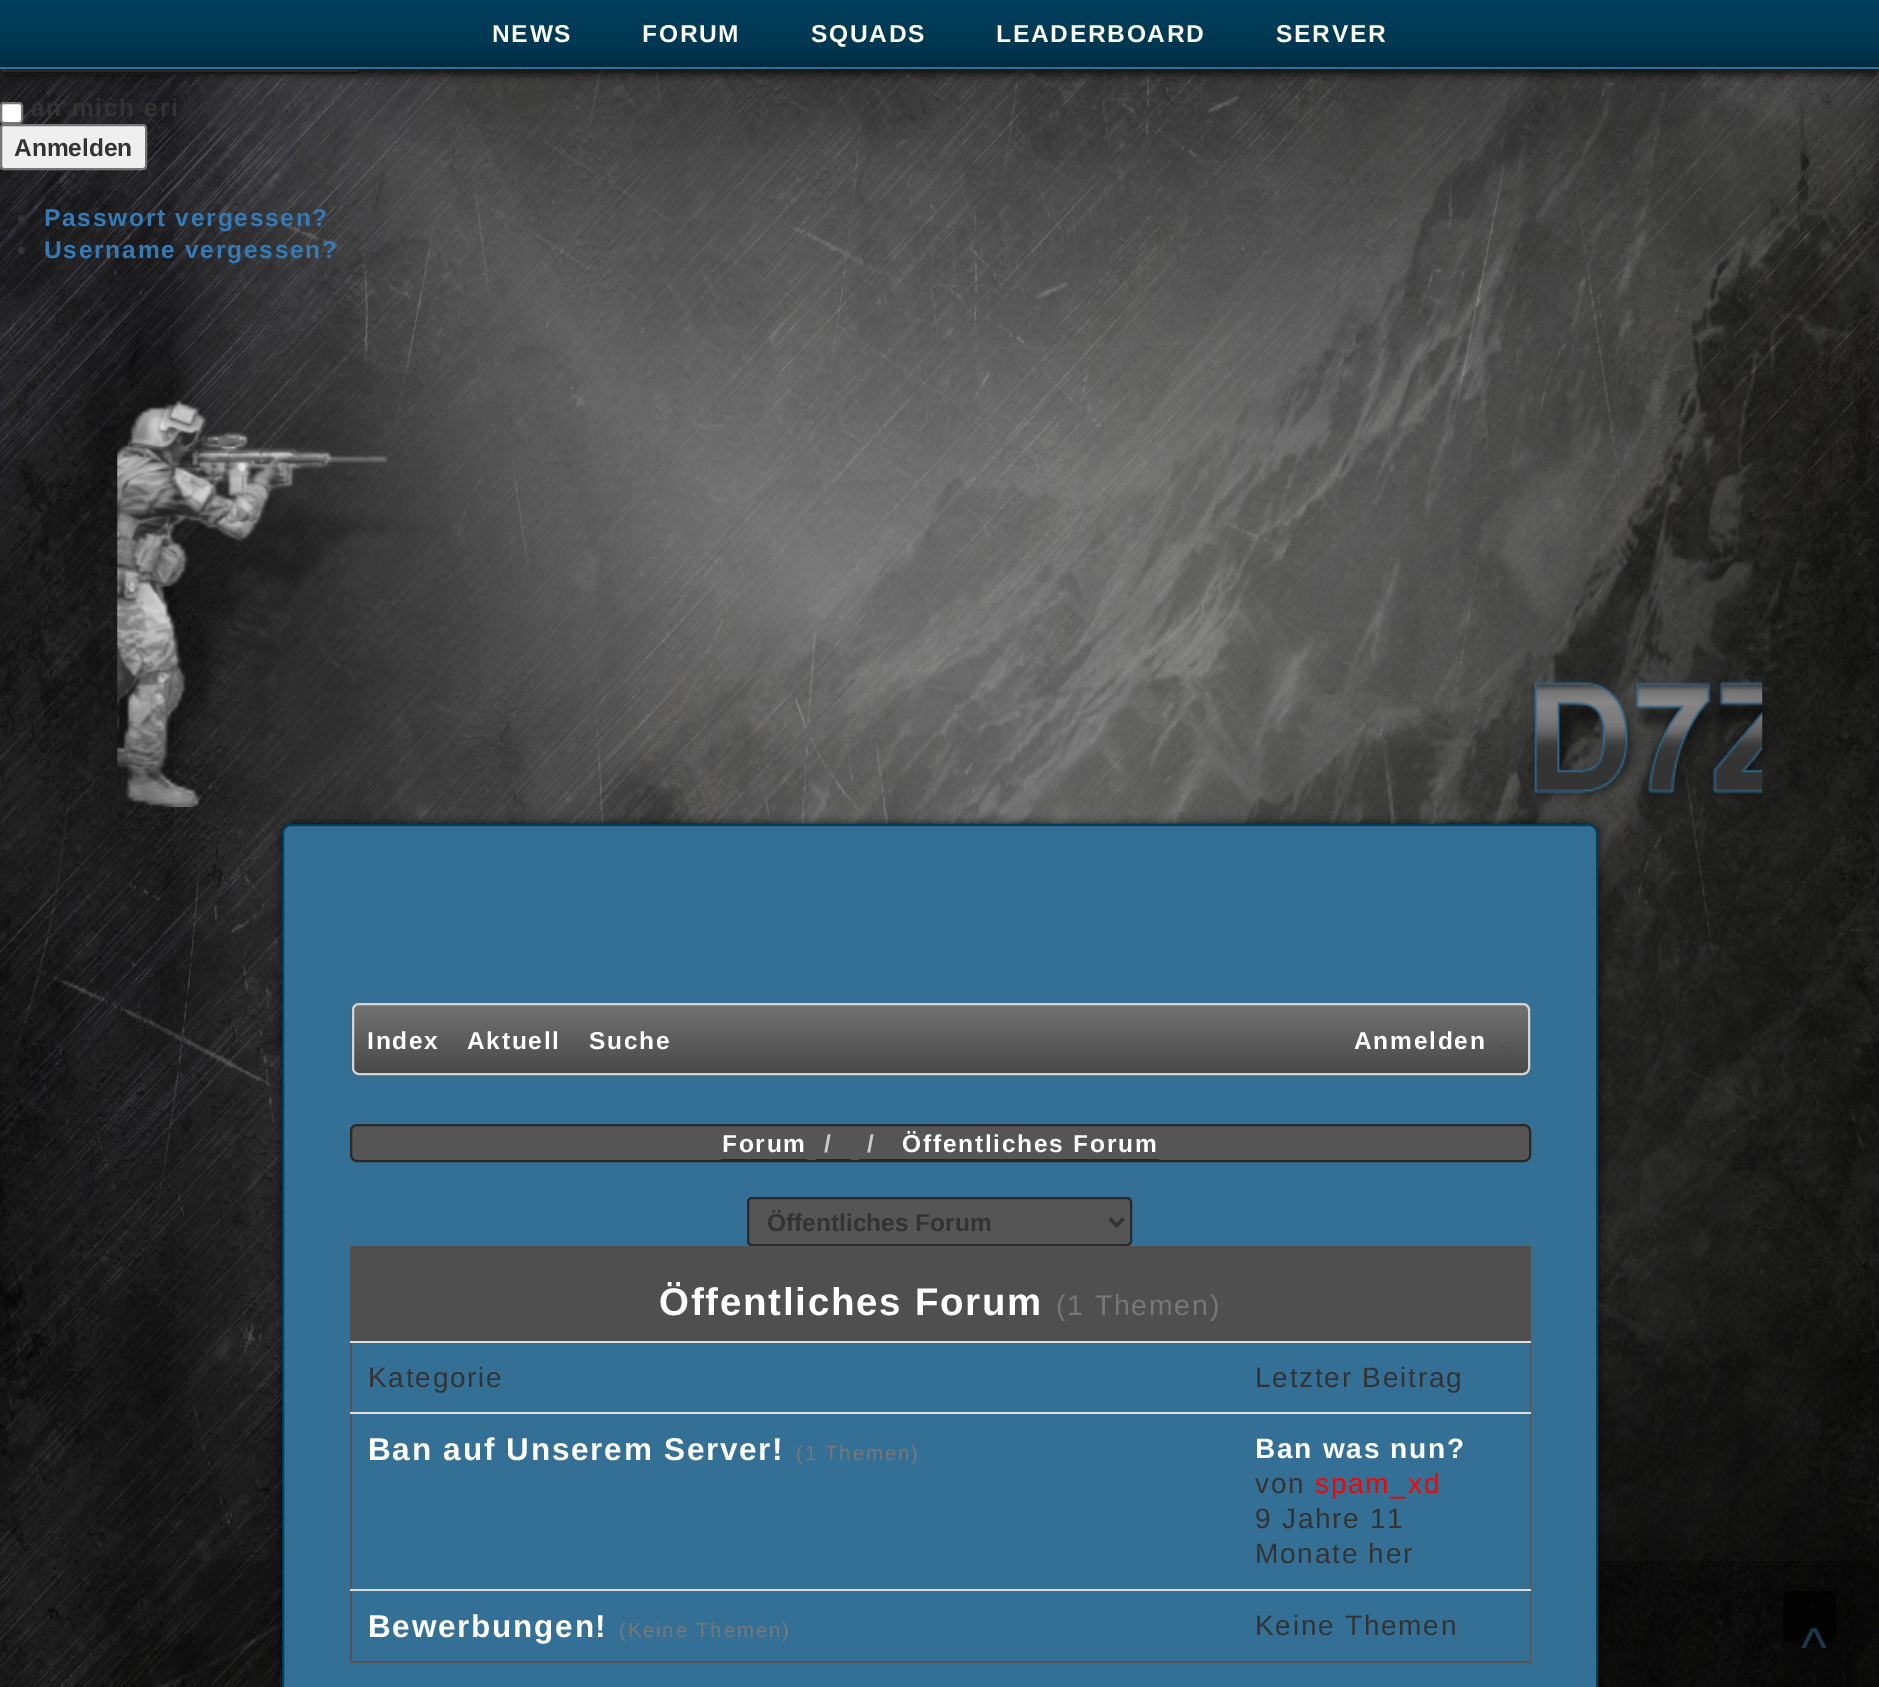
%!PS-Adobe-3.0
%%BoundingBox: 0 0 1879 1687
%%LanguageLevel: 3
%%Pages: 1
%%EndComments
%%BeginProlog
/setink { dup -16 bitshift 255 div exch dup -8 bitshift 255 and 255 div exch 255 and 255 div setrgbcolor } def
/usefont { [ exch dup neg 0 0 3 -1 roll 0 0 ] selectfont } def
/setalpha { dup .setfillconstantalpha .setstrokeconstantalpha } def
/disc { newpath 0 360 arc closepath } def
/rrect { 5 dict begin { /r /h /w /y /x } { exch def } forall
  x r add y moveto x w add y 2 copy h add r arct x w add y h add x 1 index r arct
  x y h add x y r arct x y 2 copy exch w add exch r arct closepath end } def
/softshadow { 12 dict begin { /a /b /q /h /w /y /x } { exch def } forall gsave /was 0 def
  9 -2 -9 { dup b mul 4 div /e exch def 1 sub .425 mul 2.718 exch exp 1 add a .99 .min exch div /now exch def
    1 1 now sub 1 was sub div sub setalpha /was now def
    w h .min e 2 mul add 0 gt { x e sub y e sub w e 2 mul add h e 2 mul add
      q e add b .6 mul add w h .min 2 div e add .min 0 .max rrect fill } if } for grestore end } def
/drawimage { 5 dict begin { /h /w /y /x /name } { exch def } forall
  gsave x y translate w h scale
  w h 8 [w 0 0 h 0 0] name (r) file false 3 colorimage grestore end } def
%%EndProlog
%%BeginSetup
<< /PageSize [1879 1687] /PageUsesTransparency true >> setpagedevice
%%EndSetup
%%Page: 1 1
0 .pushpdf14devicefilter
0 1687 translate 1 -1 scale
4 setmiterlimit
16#FFFFFF setink
0 0 1879 1687 rectfill
(img2.raw) 0 69 1879 1618 drawimage
(img3.raw) 174 69 1705 1492 drawimage
16#555555 setink
1 43 359 30 4 rrect gsave fill grestore
16#292929 setink
2 setlinewidth
stroke
(img1.raw) 0 0 1879 67 drawimage
gsave
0 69 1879 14 rectclip
16#000000 setink
4 12 1872 62 0 4.5 0.75 softshadow
grestore
16#347096 setink
0 67 1879 2 rectfill
/LiberationSans-Bold 24.5 usefont
16#FFFFFF setink
492 42 moveto 1.75 0 (NEWS) ashow
642 42 moveto 1.75 0 (FORUM) ashow
811 42 moveto 1.75 0 (SQUADS) ashow
996 42 moveto 1.75 0 (LEADERBOARD) ashow
1276 42 moveto 1.75 0 (SERVER) ashow
1 103 21 20 3 rrect gsave fill grestore
16#767676 setink
stroke
16#333333 setink
31 116 moveto 1.75 0 (an mich eri) ashow
16#EFEFEF setink
1 125 145 44 3 rrect gsave fill grestore
16#767676 setink
stroke
16#333333 setink
14 156 moveto (Anmelden) show
21.5 218.5 3.5 disc fill
16#337AB7 setink
44 226 moveto 1.75 0 (Passwort vergessen?) ashow
16#333333 setink
21.5 250.5 3.5 disc fill
16#337AB7 setink
44 258 moveto 1.75 0 (Username vergessen?) ashow
(img4.raw) 117 400 1646 407 drawimage
16#000000 setink
282 824 1316 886 9 4.5 0.75 softshadow
16#347096 setink
283 825 1314 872 8 rrect gsave fill grestore
16#00405D setink
stroke
16#000000 setink
352 1005 1178 71 7 3.5 0.07 softshadow
gsave
352 1003 1178 72 7 rrect clip newpath
gsave 352 1005 moveto 1530 1005 lineto 1530 1073 lineto 352 1073 lineto closepath clip newpath
<< /ShadingType 2 /ColorSpace /DeviceRGB /Coords [941 1005 941 1073] /Extend [true true] /Function << /FunctionType 2 /Domain [0 1] /C0 [0.447 0.447 0.447] /C1 [0.286 0.286 0.286] /N 1 >> >> shfill grestore
grestore
16#D4D4D4 setink
353 1004 1176 70 6 rrect stroke
16#FFFFFF setink
367 1049 moveto 1.75 0 (Index) ashow
467 1049 moveto 1.75 0 (Aktuell) ashow
589 1049 moveto 1.75 0 (Suche) ashow
1354 1049 moveto 1.75 0 (Anmelden) ashow
16#555555 setink
1500 1046.5 moveto 1514 1046.5 lineto 1507 1053.5 lineto closepath fill
351 1125 1179 36 6 rrect gsave fill grestore
16#292929 setink
stroke
721 1159 86 1 rectfill
16#FFFFFF setink
722 1152 moveto 1.75 0 (Forum) ashow
16#292929 setink
816 1159 35 1 rectfill
16#CCCCCC setink
824 1152 moveto 1.75 0 (/) ashow
16#292929 setink
859 1159 300 1 rectfill
16#CCCCCC setink
867 1152 moveto 1.75 0 (/) ashow
16#FFFFFF setink
902 1152 moveto 1.75 0 (Öffentliches Forum) ashow
16#555555 setink
748 1198 383 47 4 rrect gsave fill grestore
16#292929 setink
stroke
16#333333 setink
3.5 setlinewidth
1109.5 1218.5 moveto 1116.5 1225.5 lineto 1123.5 1218.5 lineto stroke
767 1231 moveto (Öffentliches Forum) show
16#4F4F4F setink
350 1246 1181 95 rectfill
/LiberationSans-Bold 38.5 usefont
16#FFFFFF setink
659 1315 moveto 1.75 0 (Öffentliches Forum) ashow
/LiberationSans-Regular 28.5 usefont
16#777777 setink
1056 1315 moveto 1.75 0 (\(1 Themen\)) ashow
[
    [1530 1341 1 322 16#555555]
    [350 1661 1181 2 16#555555]
    [350 1341 2 322 16#555555]
] { aload pop setink rectfill } forall
/LiberationSans-Regular 28 usefont
16#333333 setink
368 1387 moveto 1.75 0 (Kategorie) ashow
16#DDDDDD setink
350 1341 1181 2 rectfill
16#333333 setink
1255 1387 moveto 1.75 0 (Letzter Beitrag) ashow
/LiberationSans-Bold 31.5 usefont
16#FFFFFF setink
368 1460 moveto 1.75 0 (Ban auf Unserem Server!) ashow
/LiberationSans-Regular 20.5 usefont
16#777777 setink
796 1460 moveto 1.75 0 (\(1 Themen\)) ashow
16#DDDDDD setink
350 1412 1181 2 rectfill
/LiberationSans-Bold 28 usefont
16#FFFFFF setink
1255 1458 moveto 1.75 0 (Ban was nun?) ashow
/LiberationSans-Regular 28 usefont
16#333333 setink
1255 1493 moveto 1.75 0 (von) ashow
16#FF0000 setink
1315 1493 moveto 1.75 0 (spam_xd) ashow
16#333333 setink
1255 1528 moveto 1.75 0 (9 Jahre 11) ashow
1255 1563 moveto 1.75 0 (Monate her) ashow
/LiberationSans-Bold 31.5 usefont
16#FFFFFF setink
368 1637 moveto 1.75 0 (Bewerbungen!) ashow
/LiberationSans-Regular 20.5 usefont
16#777777 setink
619 1637 moveto 1.75 0 (\(Keine Themen\)) ashow
16#DDDDDD setink
350 1589 1181 2 rectfill
/LiberationSans-Regular 28 usefont
16#333333 setink
1255 1635 moveto 1.75 0 (Keine Themen) ashow
0.7 setalpha
16#000000 setink
1783 1591 53 52 9 rrect fill
/LiberationSans-Regular 55 usefont
1 setalpha
16#1B384B setink
1801 1666 moveto 1.75 0 (^) ashow
.poppdf14devicefilter showpage
%%EOF
